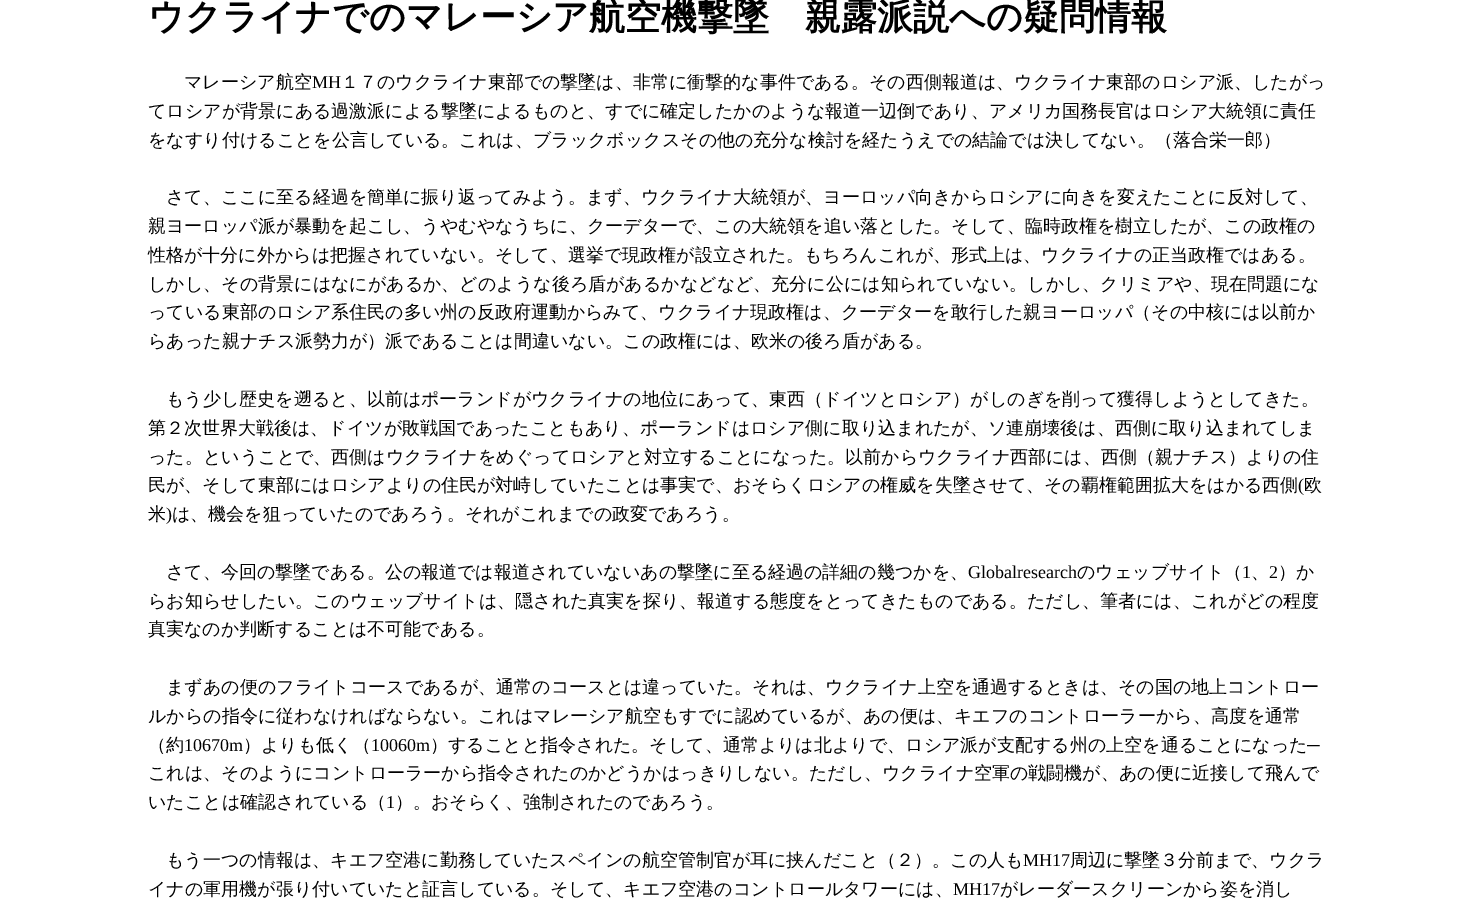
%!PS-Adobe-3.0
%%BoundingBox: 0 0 1478 914
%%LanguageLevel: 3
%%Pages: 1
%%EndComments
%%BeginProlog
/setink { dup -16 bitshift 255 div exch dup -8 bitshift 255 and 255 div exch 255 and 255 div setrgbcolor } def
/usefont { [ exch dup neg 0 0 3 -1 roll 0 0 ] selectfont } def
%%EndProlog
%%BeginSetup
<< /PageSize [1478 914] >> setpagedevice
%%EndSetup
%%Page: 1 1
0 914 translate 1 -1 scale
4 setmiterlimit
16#FFFFFF setink
0 0 1478 914 rectfill
/WenQuanYiZenHei-Bold 36 usefont
16#000000 setink
148 29 moveto (ウクライナでのマレーシア航空機撃墜　親露派説への疑問情報) show
/WenQuanYiZenHei-Medium 18 usefont
184 88 moveto (マレーシア航空) show
/LiberationSerif-Regular 18 usefont
312 88 moveto (MH) show
/WenQuanYiZenHei-Medium 18 usefont
[
    [(１７のウクライナ東部での撃墜は、非常に衝撃的な事件である。その西側報道は、ウクライナ東部のロシア派、したがっ) 341 88]
    [(てロシアが背景にある過激派による撃墜によるものと、すでに確定したかのような報道一辺倒であり、アメリカ国務長官はロシア大統領に責任) 148 117]
    [(をなすり付けることを公言している。これは、ブラックボックスその他の充分な検討を経たうえでの結論では決してない。（落合栄一郎）) 148 146]
    [(さて、ここに至る経過を簡単に振り返ってみよう。まず、ウクライナ大統領が、ヨーロッパ向きからロシアに向きを変えたことに反対して、) 166 203]
    [(親ヨーロッパ派が暴動を起こし、うやむやなうちに、クーデターで、この大統領を追い落とした。そして、臨時政権を樹立したが、この政権の) 148 232]
    [(性格が十分に外からは把握されていない。そして、選挙で現政権が設立された。もちろんこれが、形式上は、ウクライナの正当政権ではある。) 148 261]
    [(しかし、その背景にはなにがあるか、どのような後ろ盾があるかなどなど、充分に公には知られていない。しかし、クリミアや、現在問題にな) 148 290]
    [(っている東部のロシア系住民の多い州の反政府運動からみて、ウクライナ現政権は、クーデターを敢行した親ヨーロッパ（その中核には以前か) 148 318]
    [(らあった親ナチス派勢力が）派であることは間違いない。この政権には、欧米の後ろ盾がある。) 148 347]
    [(もう少し歴史を遡ると、以前はポーランドがウクライナの地位にあって、東西（ドイツとロシア）がしのぎを削って獲得しようとしてきた。) 166 405]
    [(第２次世界大戦後は、ドイツが敗戦国であったこともあり、ポーランドはロシア側に取り込まれたが、ソ連崩壊後は、西側に取り込まれてしま) 148 434]
    [(った。ということで、西側はウクライナをめぐってロシアと対立することになった。以前からウクライナ西部には、西側（親ナチス）よりの住) 148 463]
    [(民が、そして東部にはロシアよりの住民が対峙していたことは事実で、おそらくロシアの権威を失墜させて、その覇権範囲拡大をはかる西側) 148 491]
] { aload pop moveto show } forall
/LiberationSerif-Regular 18 usefont
1298 491 moveto (\() show
/WenQuanYiZenHei-Medium 18 usefont
1304 491 moveto (欧) show
148 520 moveto (米) show
/LiberationSerif-Regular 18 usefont
166 520 moveto (\)) show
/WenQuanYiZenHei-Medium 18 usefont
172 520 moveto (は、機会を狙っていたのであろう。それがこれまでの政変であろう。) show
166 578 moveto (さて、今回の撃墜である。公の報道では報道されていないあの撃墜に至る経過の詳細の幾つかを、) show
/LiberationSerif-Regular 18 usefont
968 578 moveto (Globalresearch) show
/WenQuanYiZenHei-Medium 18 usefont
1077 578 moveto (のウェッブサイト（) show
/LiberationSerif-Regular 18 usefont
1242 578 moveto (1) show
1269 578 moveto (2) show
/WenQuanYiZenHei-Medium 18 usefont
[
    [(）か) 1278 578]
    [(、) 1251 578]
    [(らお知らせしたい。このウェッブサイトは、隠された真実を探り、報道する態度をとってきたものである。ただし、筆者には、これがどの程度) 148 607]
    [(真実なのか判断することは不可能である。) 148 635]
    [(まずあの便のフライトコースであるが、通常のコースとは違っていた。それは、ウクライナ上空を通過するときは、その国の地上コントロー) 166 693]
    [(ルからの指令に従わなければならない。これはマレーシア航空もすでに認めているが、あの便は、キエフのコントローラーから、高度を通常) 148 722]
    [(（約) 148 751]
] { aload pop moveto show } forall
/LiberationSerif-Regular 18 usefont
184 751 moveto (10670m) show
/WenQuanYiZenHei-Medium 18 usefont
243 751 moveto (）よりも低く（) show
/LiberationSerif-Regular 18 usefont
371 751 moveto (10060m) show
/WenQuanYiZenHei-Medium 18 usefont
430 751 moveto (）することと指令された。そして、通常よりは北よりで、ロシア派が支配する州の上空を通ることになった) show
/LiberationSerif-Regular 18 usefont
1307 751 moveto (─) show
/WenQuanYiZenHei-Medium 18 usefont
148 779 moveto (これは、そのようにコントローラーから指令されたのかどうかはっきりしない。ただし、ウクライナ空軍の戦闘機が、あの便に近接して飛んで) show
148 808 moveto (いたことは確認されている（) show
/LiberationSerif-Regular 18 usefont
386 808 moveto (1) show
/WenQuanYiZenHei-Medium 18 usefont
395 808 moveto (）。おそらく、強制されたのであろう。) show
166 866 moveto (もう一つの情報は、キエフ空港に勤務していたスペインの航空管制官が耳に挟んだこと（２）。この人も) show
/LiberationSerif-Regular 18 usefont
1023 866 moveto (MH17) show
/WenQuanYiZenHei-Medium 18 usefont
1070 866 moveto (周辺に撃墜３分前まで、ウクラ) show
148 895 moveto (イナの軍用機が張り付いていたと証言している。そして、キエフ空港のコントロールタワーには、) show
/LiberationSerif-Regular 18 usefont
953 895 moveto (MH17) show
/WenQuanYiZenHei-Medium 18 usefont
1000 895 moveto (がレーダースクリーンから姿を消し) show
showpage
%%EOF
